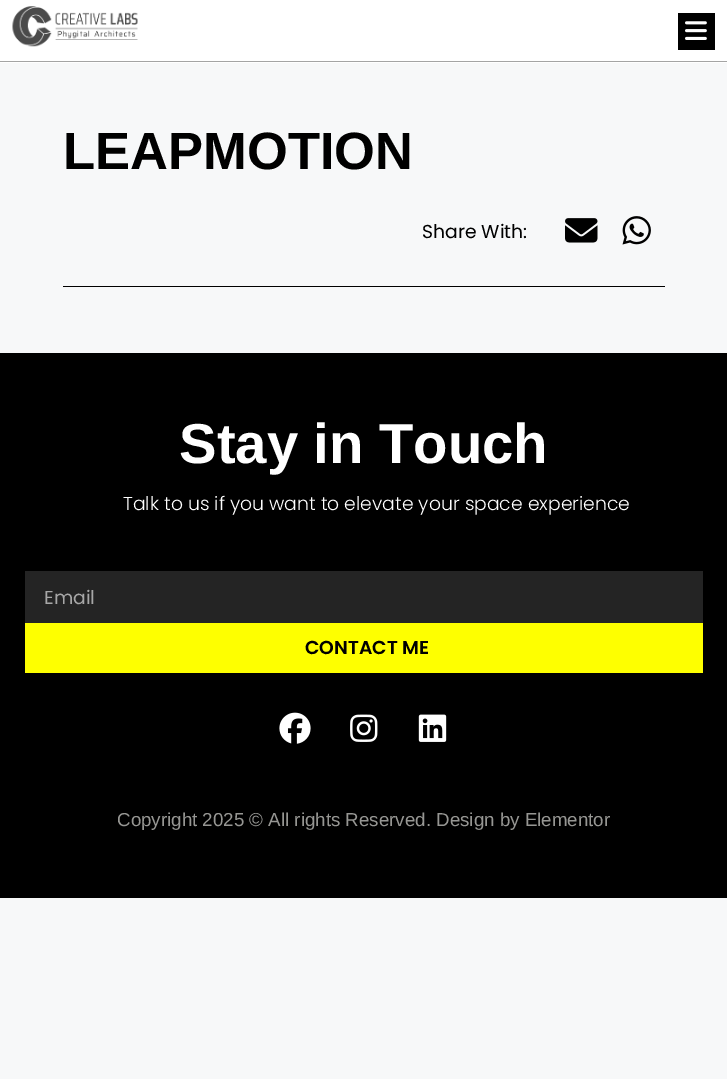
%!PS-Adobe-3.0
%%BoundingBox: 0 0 727 1079
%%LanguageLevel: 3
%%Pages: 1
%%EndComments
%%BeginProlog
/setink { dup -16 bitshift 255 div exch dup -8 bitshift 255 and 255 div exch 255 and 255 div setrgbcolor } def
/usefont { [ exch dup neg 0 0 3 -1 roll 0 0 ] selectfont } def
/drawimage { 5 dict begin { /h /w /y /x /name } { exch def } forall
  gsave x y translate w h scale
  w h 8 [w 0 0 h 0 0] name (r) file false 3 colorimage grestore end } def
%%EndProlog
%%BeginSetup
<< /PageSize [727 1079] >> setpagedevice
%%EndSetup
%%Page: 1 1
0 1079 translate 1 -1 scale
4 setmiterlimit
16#F7F8F9 setink
0 0 727 1079 rectfill
16#FFFFFF setink
0 0 727 63 rectfill
16#A4A4A4 setink
0 61 727 1 rectfill
(img1.raw) 12 6 126 41 drawimage
16#000000 setink
678 13 37 37 rectfill
(img2.raw) 685 21 22 19 drawimage
/LiberationSans-Bold 52.5 usefont
63 169 moveto (LEAPMOTION) show
/Poppins-Regular 18.75 usefont
422 238 moveto (Share With:) show
(img3.raw) 565 218 33 25 drawimage
(img4.raw) 622 216 29 29 drawimage
63 286 602 1 rectfill
0 353 727 545 rectfill
/LiberationSans-Bold 56.25 usefont
16#FFFFFF setink
179 463 moveto (Stay in Touch) show
/Poppins-Light 18.75 usefont
123 510 moveto (Talk to us if you want to elevate your space experience) show
16#242424 setink
25 571 678 52 rectfill
/Poppins-Regular 18.75 usefont
16#A7A7A7 setink
44 604 moveto (Email) show
16#FEFF00 setink
25 623 678 50 rectfill
/Poppins-SemiBold 18.75 usefont
16#000000 setink
305 654 moveto (CONTACT ME) show
(img5.raw) 279 712 32 32 drawimage
(img6.raw) 350 714 28 28 drawimage
(img7.raw) 418 714 29 28 drawimage
/LiberationSans-Regular 18.75 usefont
16#969693 setink
117 826 moveto (Copyright 2025 © All rights Reserved. Design by Elementor) show
showpage
%%EOF
